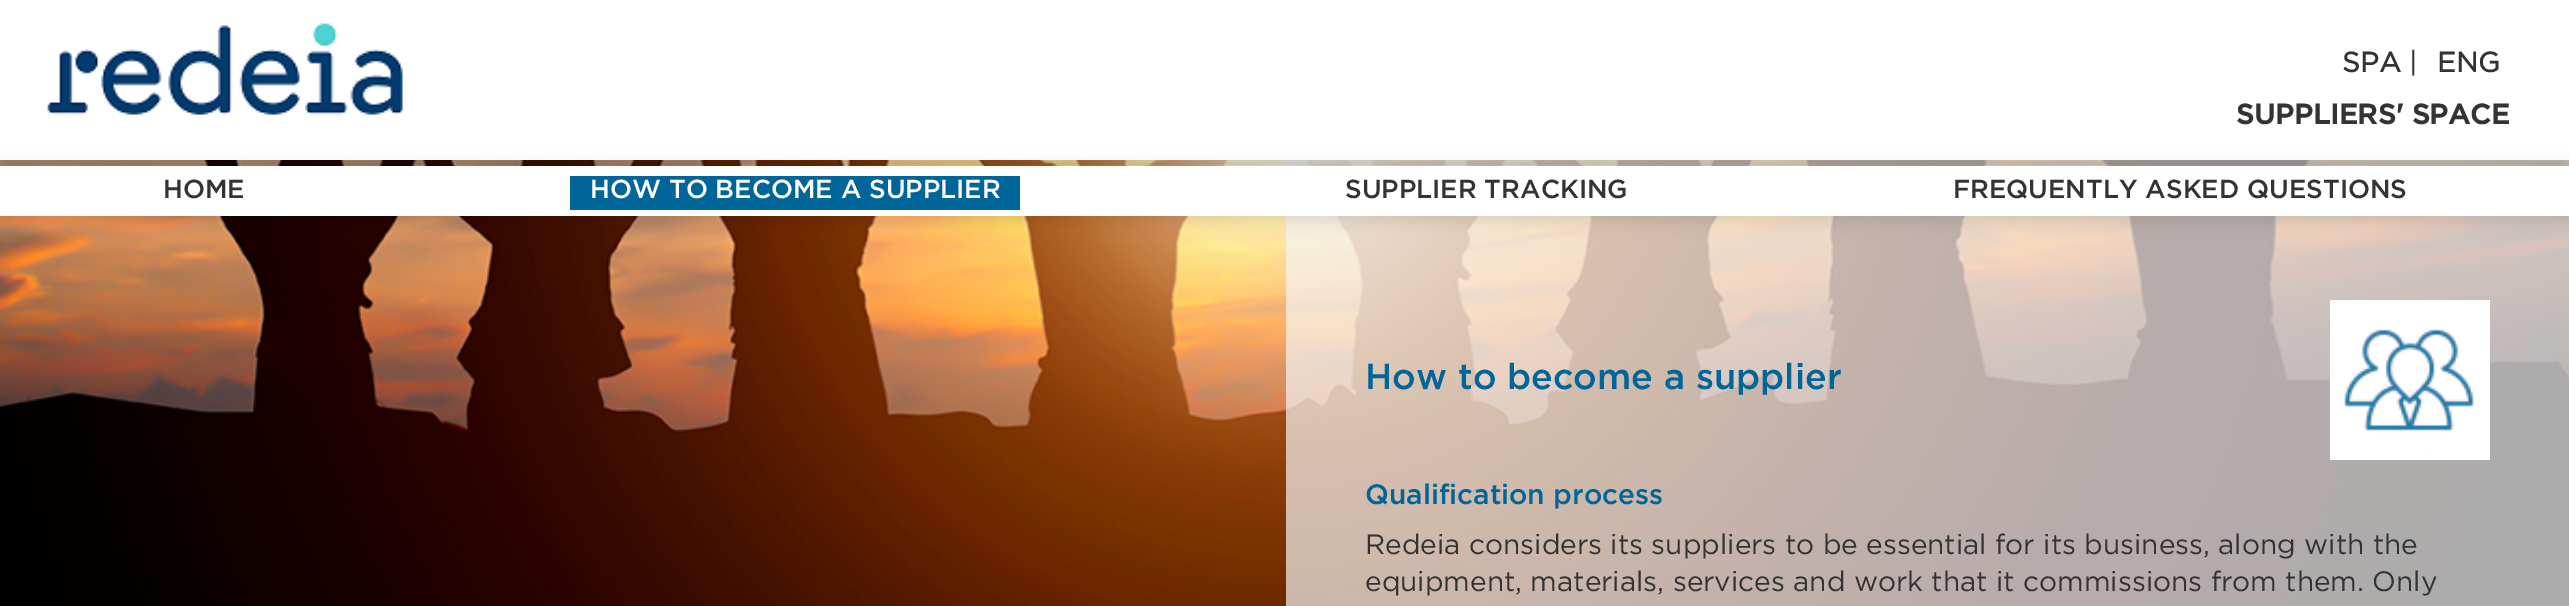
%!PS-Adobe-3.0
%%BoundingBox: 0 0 2569 606
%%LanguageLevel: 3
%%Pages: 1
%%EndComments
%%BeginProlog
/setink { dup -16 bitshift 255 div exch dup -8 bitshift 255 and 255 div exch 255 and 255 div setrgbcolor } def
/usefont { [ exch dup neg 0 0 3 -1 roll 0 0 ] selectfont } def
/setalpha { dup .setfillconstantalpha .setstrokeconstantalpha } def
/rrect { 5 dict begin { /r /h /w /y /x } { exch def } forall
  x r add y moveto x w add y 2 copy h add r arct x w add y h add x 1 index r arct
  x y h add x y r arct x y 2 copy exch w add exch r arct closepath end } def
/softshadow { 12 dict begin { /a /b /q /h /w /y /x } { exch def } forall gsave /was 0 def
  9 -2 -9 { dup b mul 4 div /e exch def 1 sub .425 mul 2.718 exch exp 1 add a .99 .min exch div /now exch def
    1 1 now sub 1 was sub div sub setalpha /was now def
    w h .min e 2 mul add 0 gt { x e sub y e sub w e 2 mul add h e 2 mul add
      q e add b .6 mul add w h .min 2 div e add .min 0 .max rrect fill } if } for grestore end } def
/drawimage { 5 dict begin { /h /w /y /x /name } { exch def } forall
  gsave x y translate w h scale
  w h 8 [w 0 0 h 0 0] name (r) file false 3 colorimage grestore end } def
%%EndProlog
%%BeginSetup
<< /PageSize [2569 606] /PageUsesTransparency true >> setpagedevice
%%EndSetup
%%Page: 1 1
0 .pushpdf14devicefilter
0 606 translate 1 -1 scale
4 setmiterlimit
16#FFFFFF setink
0 0 2569 606 rectfill
(img1.raw) 0 160 2569 446 drawimage
0.7 setalpha
16#F4F4F4 setink
1286 160 1283 446 rectfill
1 setalpha
16#000000 setink
0 10 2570 160 0 20 0.2 softshadow
16#FFFFFF setink
0 0 2569 160 rectfill
(img2.raw) 47 23 356 92 drawimage
/Gotham-Bold 28 usefont
16#333333 setink
2342 72 moveto (SPA) show
/Gotham-Regular 28 usefont
2409 72 moveto (|) show
/Gotham-Bold 28 usefont
2437 72 moveto (ENG) show
/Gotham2-Bold 28 usefont
2236 124 moveto (SUPPLIERS' SPACE) show
16#000000 setink
-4 164 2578 58 0 7 0.1 softshadow
16#FFFFFF setink
0 166 2569 50 rectfill
/Gotham-Medium 26 usefont
16#333333 setink
163 198 moveto (HOME) show
16#006699 setink
570 176 450 34 rectfill
16#FFFFFF setink
590 198 moveto (HOW TO BECOME A SUPPLIER) show
16#333333 setink
1345 198 moveto (SUPPLIER TRACKING) show
1953 198 moveto (FREQUENTLY ASKED QUESTIONS) show
/Gotham-Medium 36 usefont
16#006699 setink
1365 389 moveto (How to become a supplier) show
(img3.raw) 2330 300 160 160 drawimage
/Gotham-Medium 28 usefont
1365 504 moveto (Qualification process) show
/Gotham-Regular 28 usefont
16#333333 setink
1365 554 moveto (Redeia considers its suppliers to be essential for its business, along with the) show
1365 591 moveto (equipment, materials, services and work that it commissions from them. Only) show
.poppdf14devicefilter showpage
%%EOF
